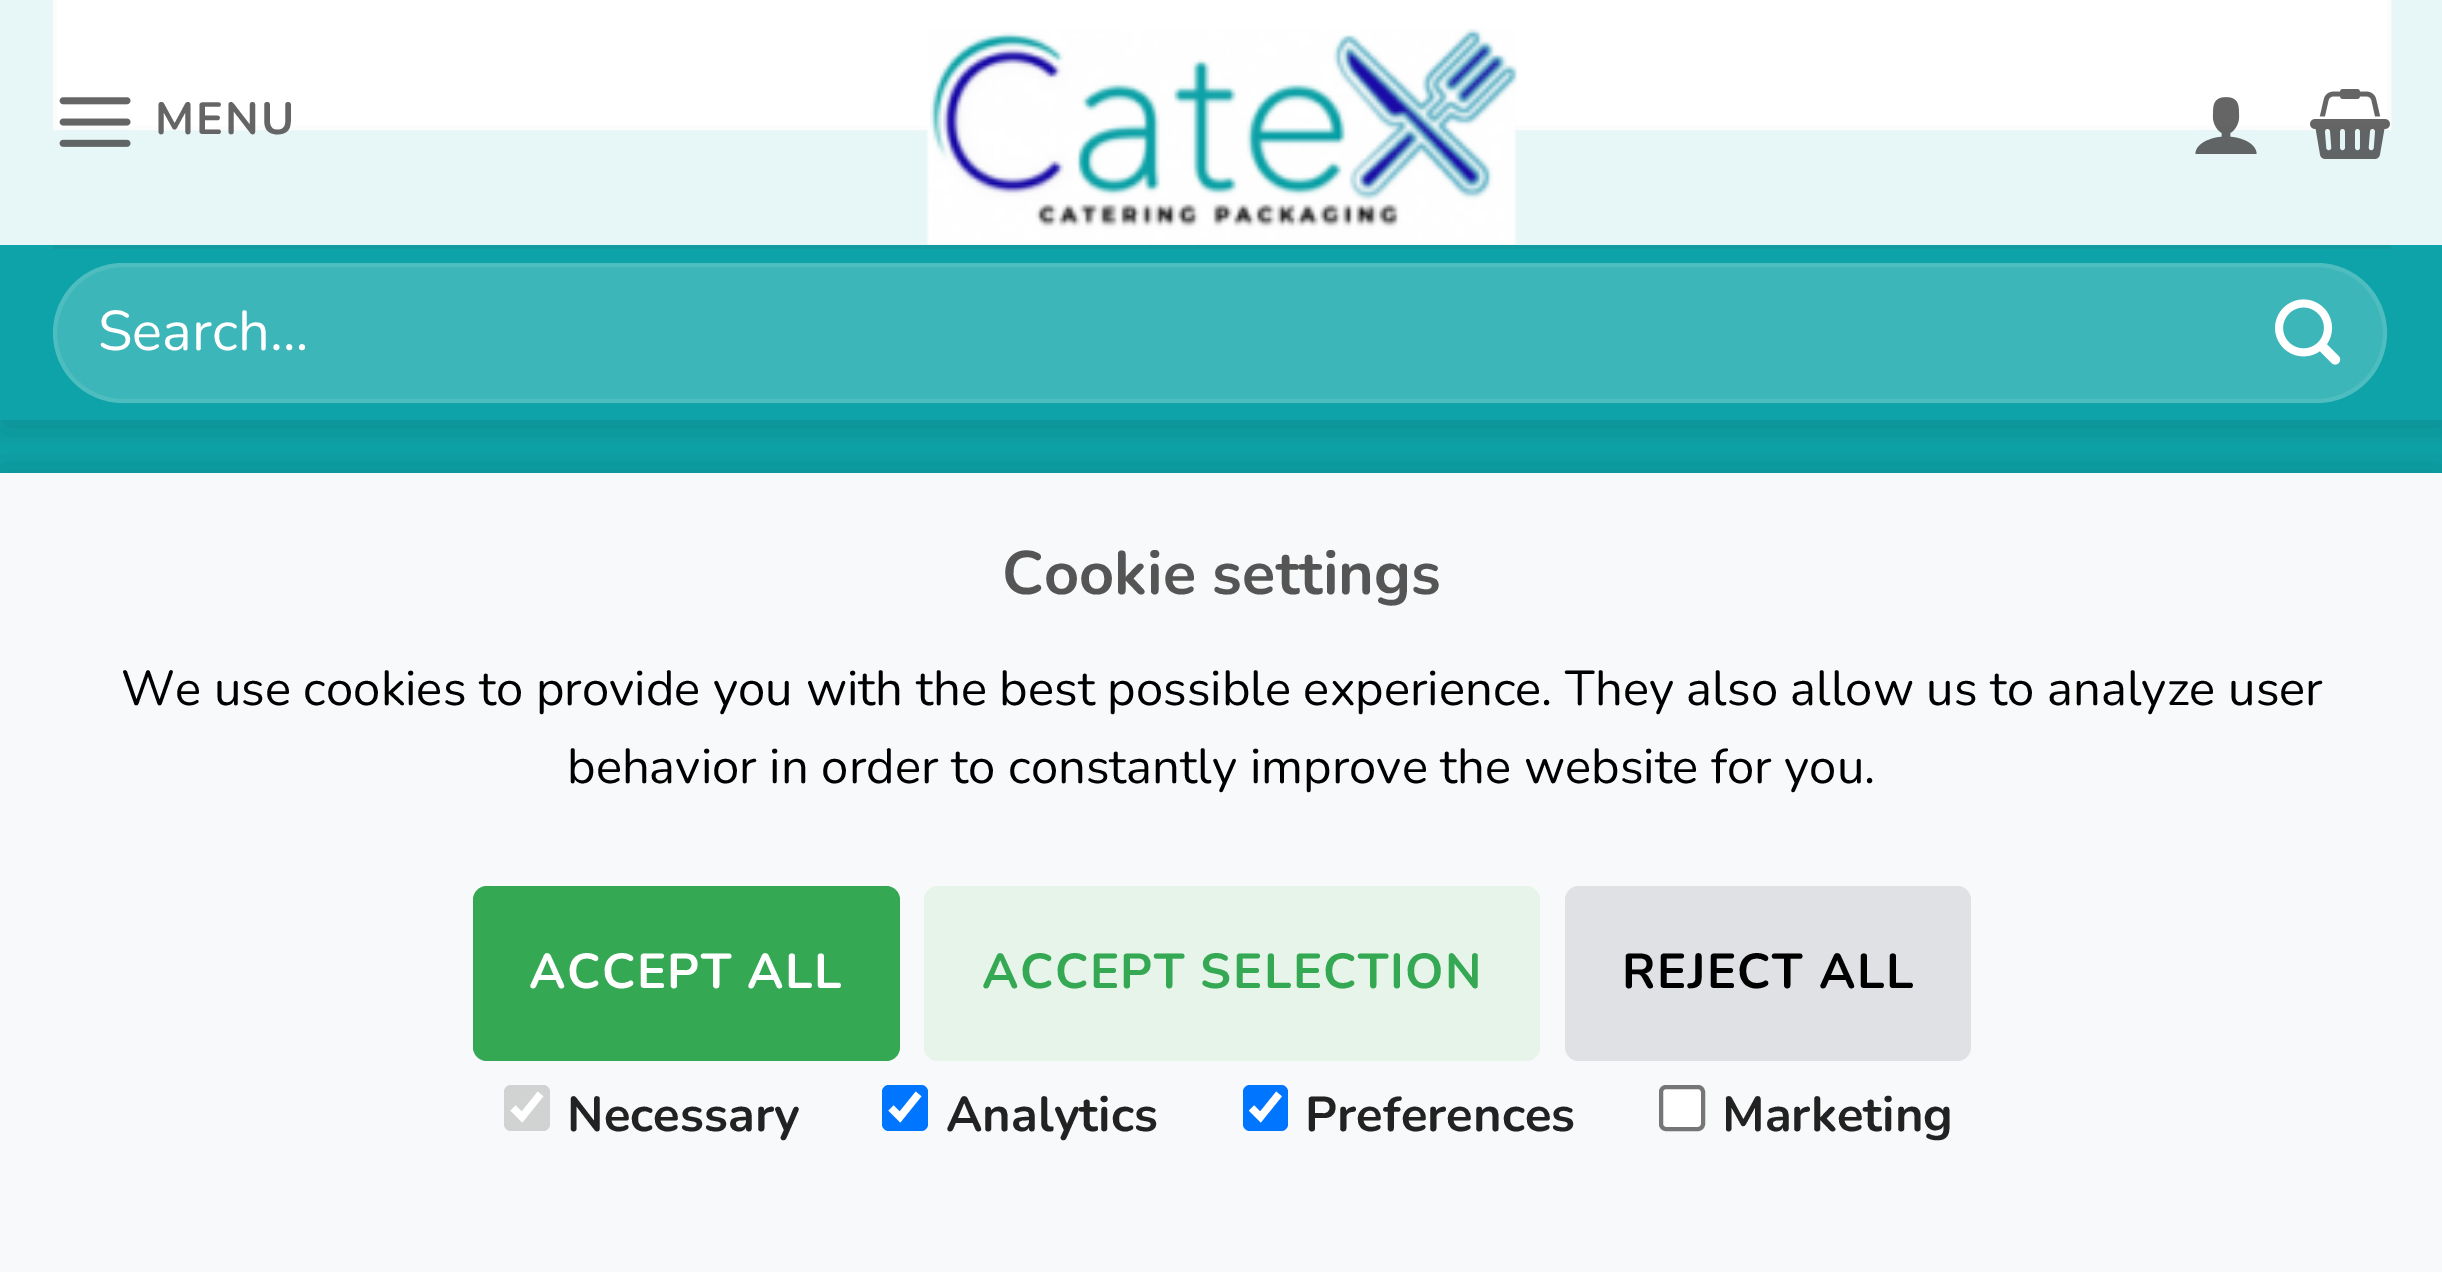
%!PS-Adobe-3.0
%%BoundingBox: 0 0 2442 1272
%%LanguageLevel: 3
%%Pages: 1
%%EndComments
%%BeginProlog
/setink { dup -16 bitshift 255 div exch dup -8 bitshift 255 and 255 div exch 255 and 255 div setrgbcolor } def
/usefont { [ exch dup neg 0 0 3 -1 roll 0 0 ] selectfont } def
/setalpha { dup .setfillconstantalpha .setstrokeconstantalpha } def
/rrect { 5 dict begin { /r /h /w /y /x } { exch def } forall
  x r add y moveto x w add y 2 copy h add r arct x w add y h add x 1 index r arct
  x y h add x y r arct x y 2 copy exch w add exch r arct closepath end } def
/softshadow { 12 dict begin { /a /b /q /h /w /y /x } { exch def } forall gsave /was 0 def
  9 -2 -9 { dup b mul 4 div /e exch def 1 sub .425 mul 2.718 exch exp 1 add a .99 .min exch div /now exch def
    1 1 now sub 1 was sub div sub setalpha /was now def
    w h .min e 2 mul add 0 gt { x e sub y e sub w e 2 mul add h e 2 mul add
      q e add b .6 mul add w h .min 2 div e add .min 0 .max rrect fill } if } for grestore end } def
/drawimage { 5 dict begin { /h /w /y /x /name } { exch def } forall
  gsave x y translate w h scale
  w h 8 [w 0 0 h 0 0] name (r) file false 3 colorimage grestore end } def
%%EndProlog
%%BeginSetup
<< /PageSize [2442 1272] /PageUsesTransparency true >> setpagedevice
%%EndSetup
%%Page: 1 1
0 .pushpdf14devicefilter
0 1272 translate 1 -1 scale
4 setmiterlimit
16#0DA3A8 setink
0 0 2442 1272 rectfill
16#E7F6F6 setink
0 0 2442 245 rectfill
16#FFFFFF setink
55 -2 moveto 2389 -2 lineto 2389 128 lineto 55 128 lineto closepath gsave fill grestore
16#FCFCFC setink
4 setlinewidth
stroke
16#000000 setink
0 466 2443 801 0 17.5 0.1 softshadow
16#F8F9FA setink
0 473 2442 799 rectfill
gsave
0 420 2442 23 rectclip
16#000000 setink
4 4 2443 420 0 17.5 0.15 softshadow
grestore
(img1.raw) 59 97 72 50 drawimage
/Nunito-Bold 45 usefont
16#656565 setink
155 134 moveto 2 0 (MENU) ashow
(img2.raw) 926 28 592 217 drawimage
(img3.raw) 2195 97 62 57 drawimage
(img4.raw) 2310 89 80 70 drawimage
16#139A9F setink
53 245 2338 4 rectfill
16#3DB6B9 setink
53 263 2334 140 70 rrect fill
0.09 setalpha
16#FFFFFF setink
55 265 2330 136 68 rrect stroke
/Nunito-Regular 56 usefont
1 setalpha
98 350 moveto (Search…) show
(img5.raw) 2275 299 66 66 drawimage
/Nunito-Bold 61.25 usefont
16#555555 setink
1002 594 moveto (Cookie settings) show
/Nunito-Regular 49 usefont
16#000000 setink
121 705 moveto (We use cookies to provide you with the best possible experience. They also allow us to analyze user) show
567 783 moveto (behavior in order to constantly improve the website for you.) show
16#34A853 setink
473 886 427 175 14 rrect fill
/Nunito-Bold 49 usefont
16#FFFFFF setink
529 988 moveto 1.5 0 (ACCEPT ALL) ashow
16#E6F4EA setink
924 886 616 175 14 rrect fill
16#34A853 setink
982 988 moveto 1.5 0 (ACCEPT SELECTION) ashow
16#DFE1E5 setink
1565 886 406 175 14 rrect fill
16#000000 setink
1622 988 moveto 1.5 0 (REJECT ALL) ashow
16#D1D2D2 setink
504 1085 46 46 7 rrect fill
16#FFFFFF setink
7.3 setlinewidth
513 1108 moveto 522 1117 lineto 540.5 1094 lineto stroke
16#222222 setink
567 1131 moveto (Necessary) show
16#0075FF setink
882 1085 46 46 7 rrect fill
16#FFFFFF setink
891 1108 moveto 900 1117 lineto 918.5 1094 lineto stroke
16#222222 setink
946 1131 moveto (Analytics) show
16#0075FF setink
1243 1085 45 46 7 rrect fill
16#FFFFFF setink
1251.5 1108 moveto 1260.5 1117 lineto 1279 1094 lineto stroke
16#222222 setink
1305 1131 moveto (Preferences) show
16#FFFFFF setink
1661 1087 42 42 5 rrect gsave fill grestore
16#767676 setink
4 setlinewidth
stroke
16#222222 setink
1722 1131 moveto (Marketing) show
.poppdf14devicefilter showpage
%%EOF
